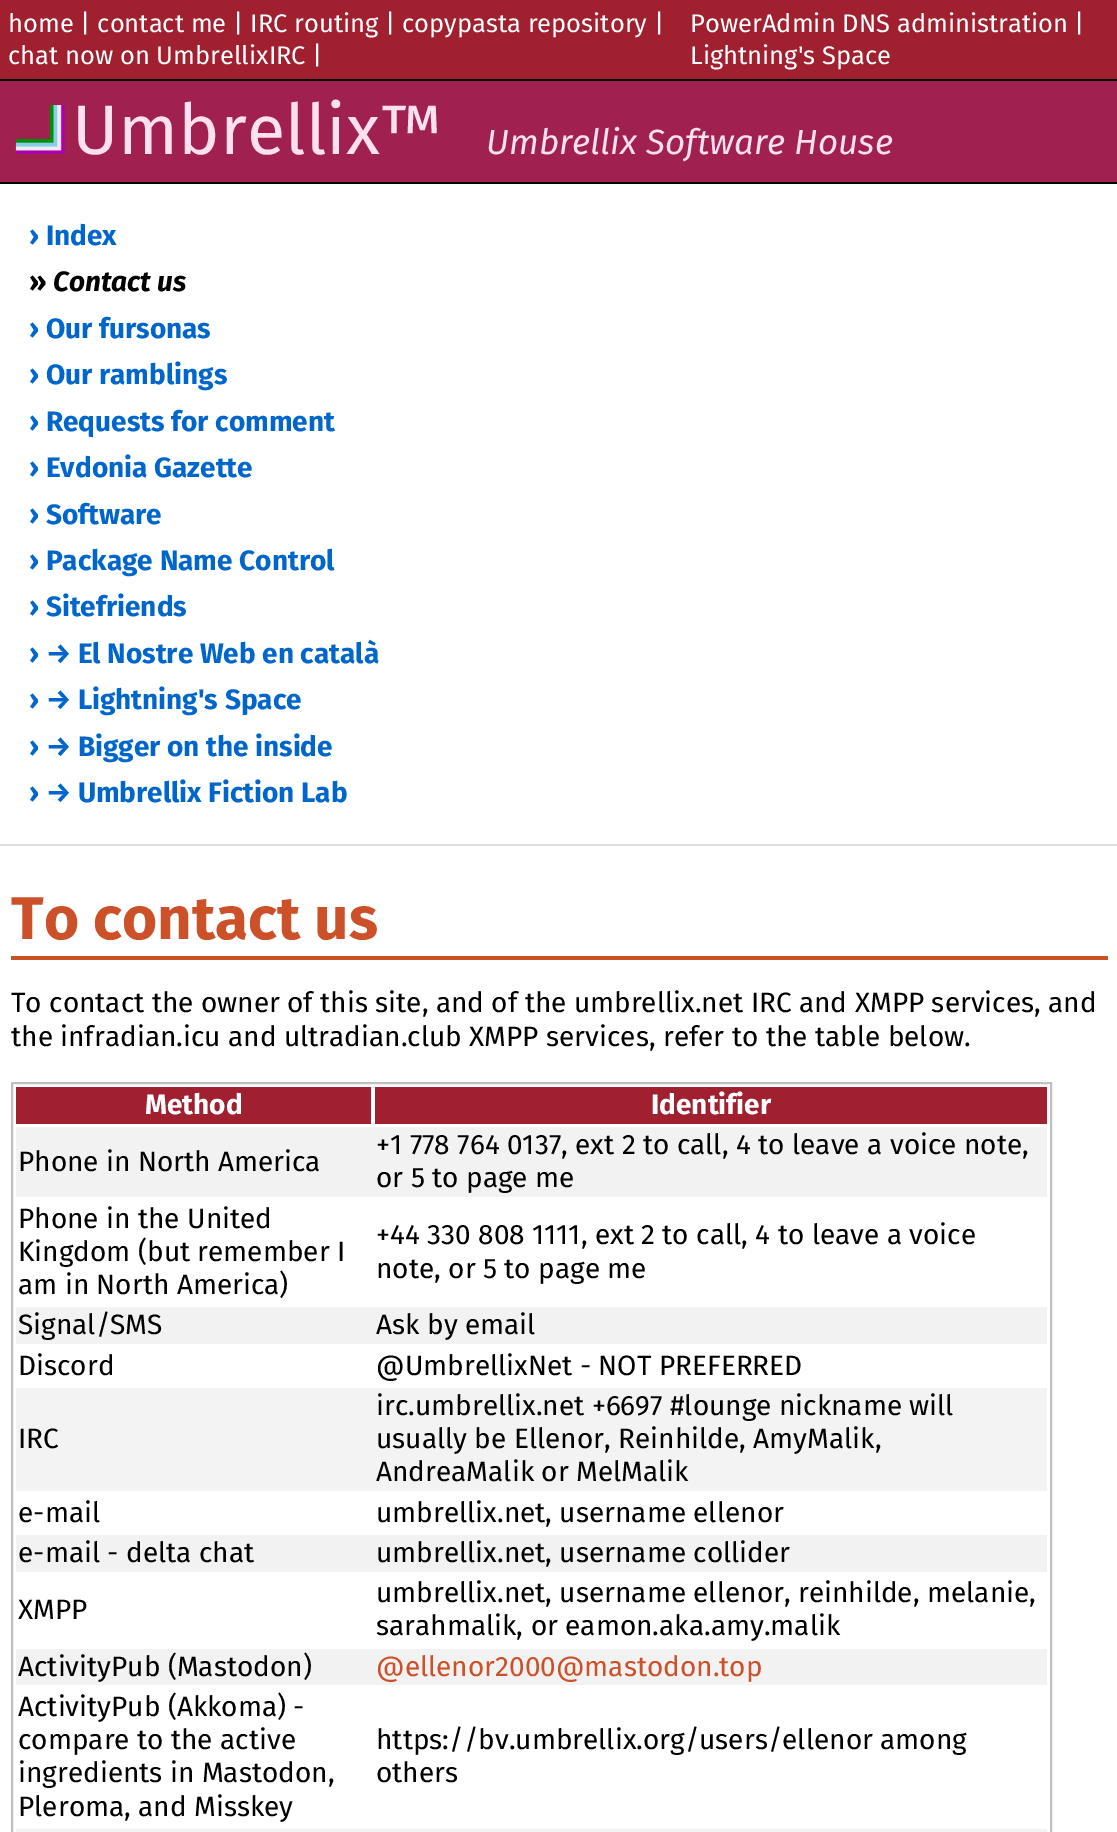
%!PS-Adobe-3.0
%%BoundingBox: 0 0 1117 1832
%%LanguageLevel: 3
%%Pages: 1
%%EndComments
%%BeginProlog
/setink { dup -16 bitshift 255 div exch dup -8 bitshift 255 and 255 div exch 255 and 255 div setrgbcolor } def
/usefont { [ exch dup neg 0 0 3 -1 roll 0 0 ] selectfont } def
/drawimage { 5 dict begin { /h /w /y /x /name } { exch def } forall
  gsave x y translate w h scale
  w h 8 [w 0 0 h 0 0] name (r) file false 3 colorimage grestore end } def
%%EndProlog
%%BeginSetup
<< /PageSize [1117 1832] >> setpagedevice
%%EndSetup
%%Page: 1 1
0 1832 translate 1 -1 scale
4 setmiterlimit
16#FFFFFF setink
0 0 1117 1832 rectfill
16#A02030 setink
0 0 1117 79 rectfill
16#000000 setink
0 79 1117 2 rectfill
/FiraSans-Regular 25.5 usefont
16#FFFFFF setink
[
    [(home | contact me | IRC routing | copypasta repository |) 8 32]
    [(chat now on UmbrellixIRC |) 8 64]
    [(PowerAdmin DNS administration) 690 32]
    [(|) 1074 32]
    [(Lightning's Space) 690 64]
] { aload pop moveto show } forall
16#A02050 setink
0 81 1117 101 rectfill
16#000000 setink
0 182 1117 2 rectfill
(img1.raw) 15 105 50 49 drawimage
/FiraSans-Regular 70 usefont
16#FFE0EE setink
72 154 moveto (Umbrellix™) show
/FiraSans-Italic 35 usefont
486 154 moveto (Umbrellix Software House) show
16#DDDDDD setink
0 844 1117 2 rectfill
/FiraSans-Bold 28 usefont
16#0066CC setink
29 245 moveto (› Index) show
16#000000 setink
29 291 moveto (») show
/FiraSans-BoldItalic 28 usefont
53 291 moveto (Contact us) show
/FiraSans-Bold 28 usefont
16#0066CC setink
[
    [(› Our fursonas) 29 338]
    [(› Our ramblings) 29 384]
    [(› Requests for comment) 29 431]
    [(› Evdonia Gazette) 29 477]
    [(› Software) 29 524]
    [(› Package Name Control) 29 570]
    [(› Sitefriends) 29 616]
    [(› → El Nostre Web en català) 29 663]
    [(› → Lightning's Space) 29 709]
    [(› → Bigger on the inside) 29 756]
    [(› → Umbrellix Fiction Lab) 29 802]
] { aload pop moveto show } forall
16#CC5028 setink
11 956 1097 4 rectfill
/FiraSans-Bold 60.25 usefont
11 939 moveto (To contact us) show
/FiraSans-Regular 28 usefont
16#000000 setink
11 1012 moveto (To contact the owner of this site, and of the umbrellix.net IRC and XMPP services, and) show
11 1046 moveto (the infradian.icu and ultradian.club XMPP services, refer to the table below.) show
16#C0C0C0 setink
2 setlinewidth
12 1083 1039 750 rectstroke
16#A02030 setink
16 1087 355 37 rectfill
/FiraSans-Bold 28 usefont
16#FFFFFF setink
145 1114 moveto (Method) show
16#A02030 setink
375 1087 672 37 rectfill
16#FFFFFF setink
651 1114 moveto (Identifier) show
16#F2F2F2 setink
16 1127 1031 70 rectfill
/FiraSans-Regular 28 usefont
16#000000 setink
[
    [(Phone in North America) 18 1171]
    [(+1 778 764 0137, ext 2 to call, 4 to leave a voice note,) 376 1154]
    [(or 5 to page me) 376 1187]
    [(Phone in the United) 18 1228]
    [(Kingdom \(but remember I) 18 1261]
    [(am in North America\)) 18 1294]
    [(+44 330 808 1111, ext 2 to call, 4 to leave a voice) 376 1244]
    [(note, or 5 to page me) 376 1278]
] { aload pop moveto show } forall
16#F2F2F2 setink
16 1307 1031 37 rectfill
16#000000 setink
[
    [(Signal/SMS) 18 1334]
    [(Ask by email) 376 1334]
    [(Discord) 18 1375]
    [(@UmbrellixNet - NOT PREFERRED) 376 1375]
] { aload pop moveto show } forall
16#F3F3F3 setink
16 1388 1031 103 rectfill
16#000000 setink
[
    [(IRC) 18 1448]
    [(irc.umbrellix.net +6697 #lounge nickname will) 376 1415]
    [(usually be Ellenor, Reinhilde, AmyMalik,) 376 1448]
    [(AndreaMalik or MelMalik) 376 1481]
    [(e-mail) 18 1522]
    [(umbrellix.net, username ellenor) 376 1522]
] { aload pop moveto show } forall
16#F2F2F2 setink
16 1535 1031 37 rectfill
16#000000 setink
[
    [(e-mail - delta chat) 18 1562]
    [(umbrellix.net, username collider) 376 1562]
    [(XMPP) 18 1619]
    [(umbrellix.net, username ellenor, reinhilde, melanie,) 376 1602]
    [(sarahmalik, or eamon.aka.amy.malik) 376 1635]
] { aload pop moveto show } forall
16#F2F2F2 setink
16 1649 1031 36 rectfill
16#000000 setink
18 1676 moveto (ActivityPub \(Mastodon\)) show
16#CC5028 setink
376 1676 moveto (@ellenor2000@mastodon.top) show
16#000000 setink
[
    [(ActivityPub \(Akkoma\) -) 18 1716]
    [(compare to the active) 18 1749]
    [(ingredients in Mastodon,) 18 1782]
    [(Pleroma, and Misskey) 18 1816]
    [(https://bv.umbrellix.org/users/ellenor among) 376 1749]
    [(others) 376 1782]
] { aload pop moveto show } forall
16#F2F2F2 setink
16 1829 1031 3 rectfill
showpage
%%EOF
